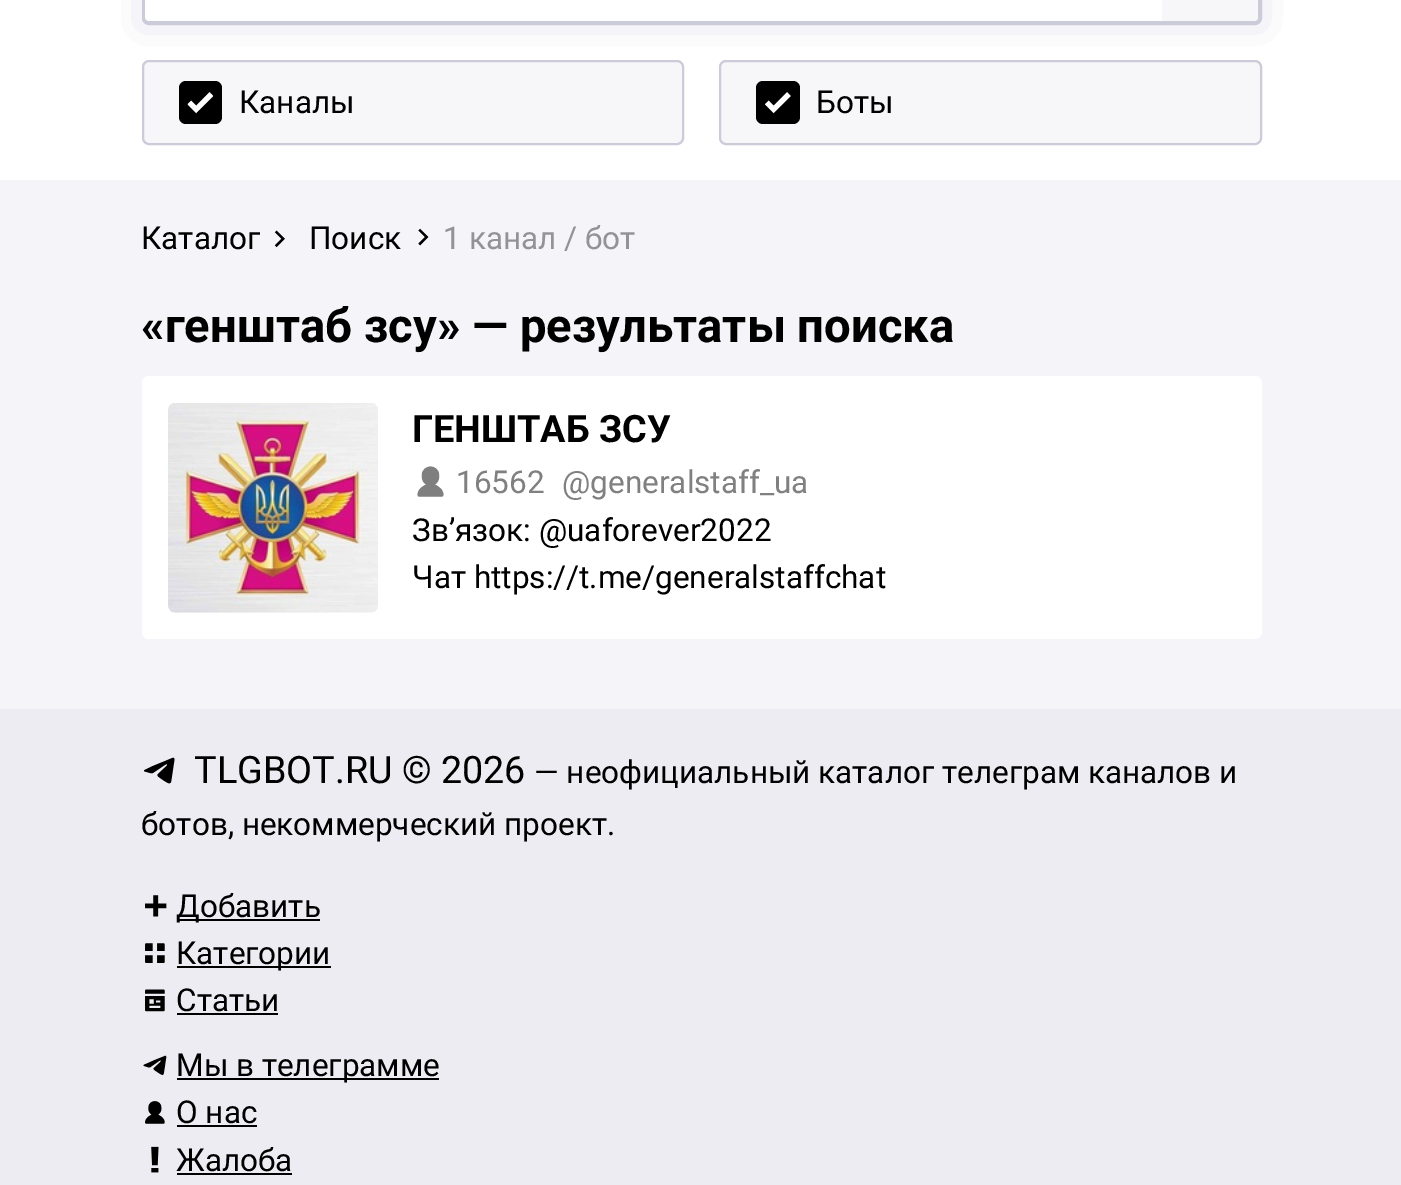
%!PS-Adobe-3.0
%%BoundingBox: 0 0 1401 1185
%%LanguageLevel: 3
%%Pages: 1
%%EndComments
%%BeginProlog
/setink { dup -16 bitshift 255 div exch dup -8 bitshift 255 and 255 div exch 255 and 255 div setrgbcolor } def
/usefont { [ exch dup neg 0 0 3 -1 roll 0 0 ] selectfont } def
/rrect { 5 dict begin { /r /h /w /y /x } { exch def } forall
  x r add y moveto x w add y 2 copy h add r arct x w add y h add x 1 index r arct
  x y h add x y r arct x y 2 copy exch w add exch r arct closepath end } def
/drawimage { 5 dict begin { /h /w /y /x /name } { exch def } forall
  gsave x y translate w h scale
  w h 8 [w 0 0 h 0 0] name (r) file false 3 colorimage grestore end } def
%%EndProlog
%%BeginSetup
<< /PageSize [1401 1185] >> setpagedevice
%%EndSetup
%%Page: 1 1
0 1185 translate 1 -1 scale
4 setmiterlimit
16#F5F5F9 setink
0 0 1401 1185 rectfill
16#FFFFFF setink
0 0 1401 180 rectfill
16#FBFBFB setink
21 setlinewidth
131.5 -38.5 1141 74 17.5 rrect stroke
16#F5F5F9 setink
11 setlinewidth
136.5 -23.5 1130 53 12.5 rrect stroke
16#CBCBD9 setink
4 setlinewidth
144 -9 1116 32 5 rrect stroke
16#FFFFFF setink
149 -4 moveto 1162 -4 lineto 1162 21 lineto 149 21 lineto 147 21 145 19 145 17 curveto 145 0 lineto 145 -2 147 -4 149 -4 curveto closepath fill
16#F7F7FA setink
1162 -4 moveto 1254 -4 lineto 1256 -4 1258 -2 1258 0 curveto 1258 17 lineto 1258 19 1256 21 1254 21 curveto 1162 21 lineto closepath fill
143 61 540 83 6 rrect gsave fill grestore
16#CBCBD9 setink
2 setlinewidth
stroke
16#000000 setink
179 81 43 43 7 rrect fill
(img1.raw) 187 92 27 22 drawimage
/Roboto-Regular 31.5 usefont
239 113 moveto (Каналы) show
16#F7F7FA setink
720 61 541 83 6 rrect gsave fill grestore
16#CBCBD9 setink
stroke
16#000000 setink
756 81 44 43 7 rrect fill
(img2.raw) 765 92 26 22 drawimage
816 113 moveto (Боты) show
141 249 moveto (Каталог) show
(img3.raw) 274 230 11 18 drawimage
309 249 moveto (Поиск) show
(img4.raw) 418 228 11 18 drawimage
16#939395 setink
443 249 moveto (1 канал / бот) show
/Roboto-Bold 47.25 usefont
16#000000 setink
141 342 moveto («генштаб зсу» — результаты поиска) show
16#FFFFFF setink
142 376 1120 263 7 rrect fill
(img5.raw) 168 403 210 210 drawimage
/Roboto-Bold 37.75 usefont
16#000000 setink
412 442 moveto (ГЕНШТАБ ЗСУ) show
(img6.raw) 417 466 27 31 drawimage
/Roboto-Regular 31.5 usefont
16#808080 setink
456 493 moveto (16562) show
562 493 moveto (@generalstaff_ua) show
16#000000 setink
412 541 moveto (Зв’язок: @uaforever2022) show
412 588 moveto (Чат https://t.me/generalstaffchat) show
16#ECECF2 setink
0 709 1401 476 rectfill
(img7.raw) 144 757 31 27 drawimage
/Roboto-Regular 37.75 usefont
16#000000 setink
194 783 moveto (TLGBOT.RU © 2026) show
/Roboto-Regular 31.5 usefont
534 783 moveto (— неофициальный каталог телеграм каналов и) show
141 835 moveto (ботов, некоммерческий проект.) show
(img8.raw) 145 895 22 22 drawimage
177 919 143 2 rectfill
176 917 moveto (Добавить) show
(img9.raw) 145 943 20 20 drawimage
177 966 154 2 rectfill
176 964 moveto (Категории) show
(img10.raw) 145 989 20 23 drawimage
176 1011 moveto (Статьи) show
177 1013 101 2 rectfill
(img11.raw) 143 1055 24 20 drawimage
177 1078 262 2 rectfill
176 1076 moveto (Мы в телеграмме) show
(img12.raw) 145 1101 20 23 drawimage
176 1123 moveto (О нас) show
177 1125 80 2 rectfill
(img13.raw) 151 1146 8 27 drawimage
176 1171 moveto (Жалоба) show
177 1173 115 2 rectfill
showpage
%%EOF
